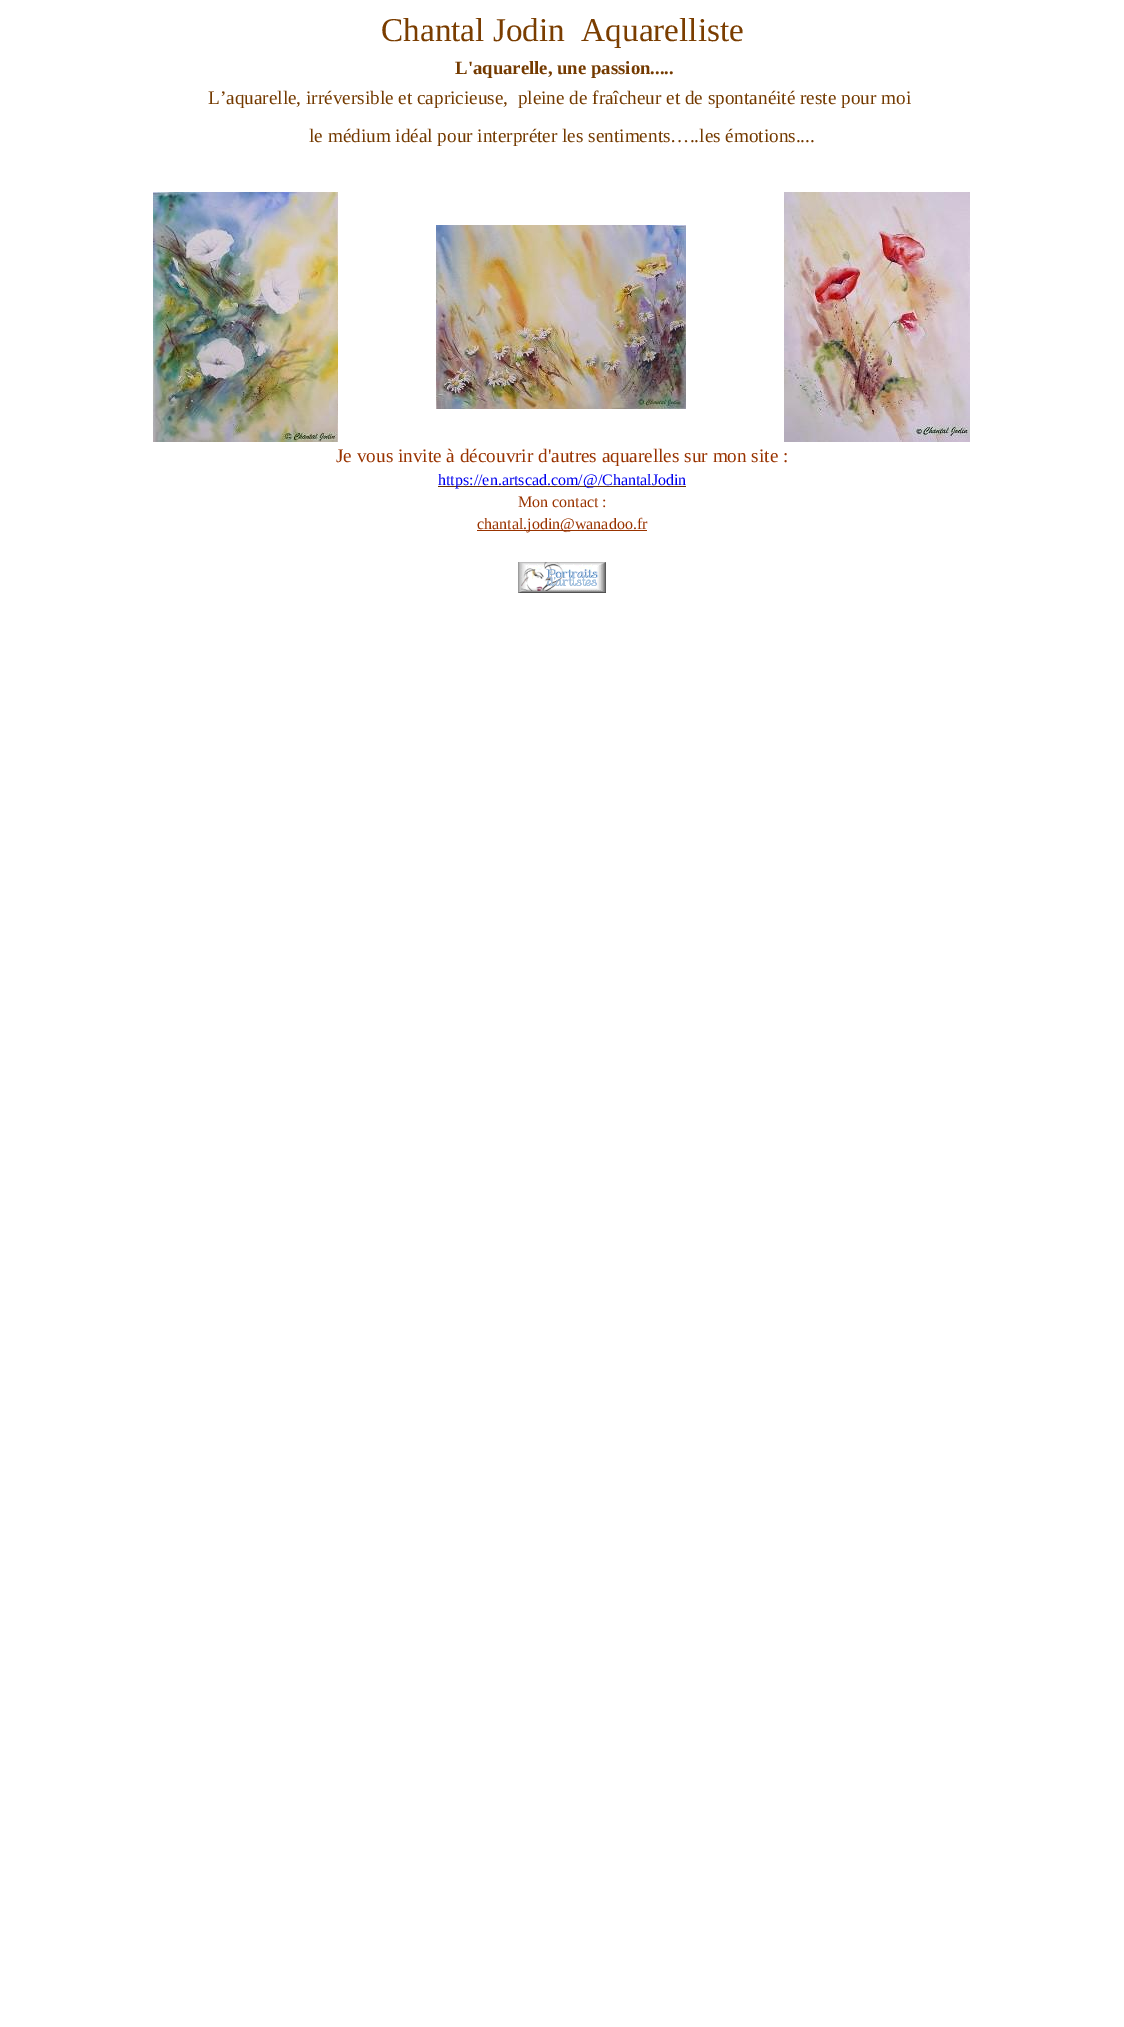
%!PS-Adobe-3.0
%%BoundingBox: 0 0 1124 2027
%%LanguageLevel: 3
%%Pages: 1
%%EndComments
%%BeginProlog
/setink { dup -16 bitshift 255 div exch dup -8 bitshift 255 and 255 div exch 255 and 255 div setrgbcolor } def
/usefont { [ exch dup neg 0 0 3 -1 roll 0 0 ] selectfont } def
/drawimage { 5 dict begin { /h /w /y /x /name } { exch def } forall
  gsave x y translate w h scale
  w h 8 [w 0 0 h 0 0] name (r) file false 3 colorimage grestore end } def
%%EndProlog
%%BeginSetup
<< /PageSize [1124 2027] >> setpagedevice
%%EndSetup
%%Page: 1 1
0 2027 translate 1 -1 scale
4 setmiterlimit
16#FFFFFF setink
0 0 1124 2027 rectfill
/LiberationSerif-Regular 33.25 usefont
16#7A3D00 setink
381 41 moveto (Chantal Jodin  Aquarelliste) show
/LiberationSerif-Bold 18.75 usefont
16#743A00 setink
455 74 moveto (L'aquarelle, une passion.....) show
/LiberationSerif-Regular 19.2 usefont
208 104 moveto (L’aquarelle, irréversible et capricieuse,  pleine de fraîcheur et de spontanéité reste pour moi) show
309 142 moveto (le médium idéal pour interpréter les sentiments…..les émotions....) show
(img1.raw) 153 192 185 250 drawimage
(img2.raw) 436 225 250 184 drawimage
(img3.raw) 784 192 186 250 drawimage
16#993300 setink
336 462 moveto (Je vous invite à découvrir d'autres aquarelles sur mon site :) show
16#663300 setink
438 486 248 1 rectfill
/LiberationSerif-Regular 16 usefont
16#0000EE setink
438 485 moveto (https://en.artscad.com/@/ChantalJodin) show
16#993300 setink
518 507 moveto (Mon contact :) show
477 530 170 1 rectfill
477 529 moveto (chantal.jodin@wanadoo.fr) show
(img4.raw) 518 562 88 31 drawimage
showpage
%%EOF
